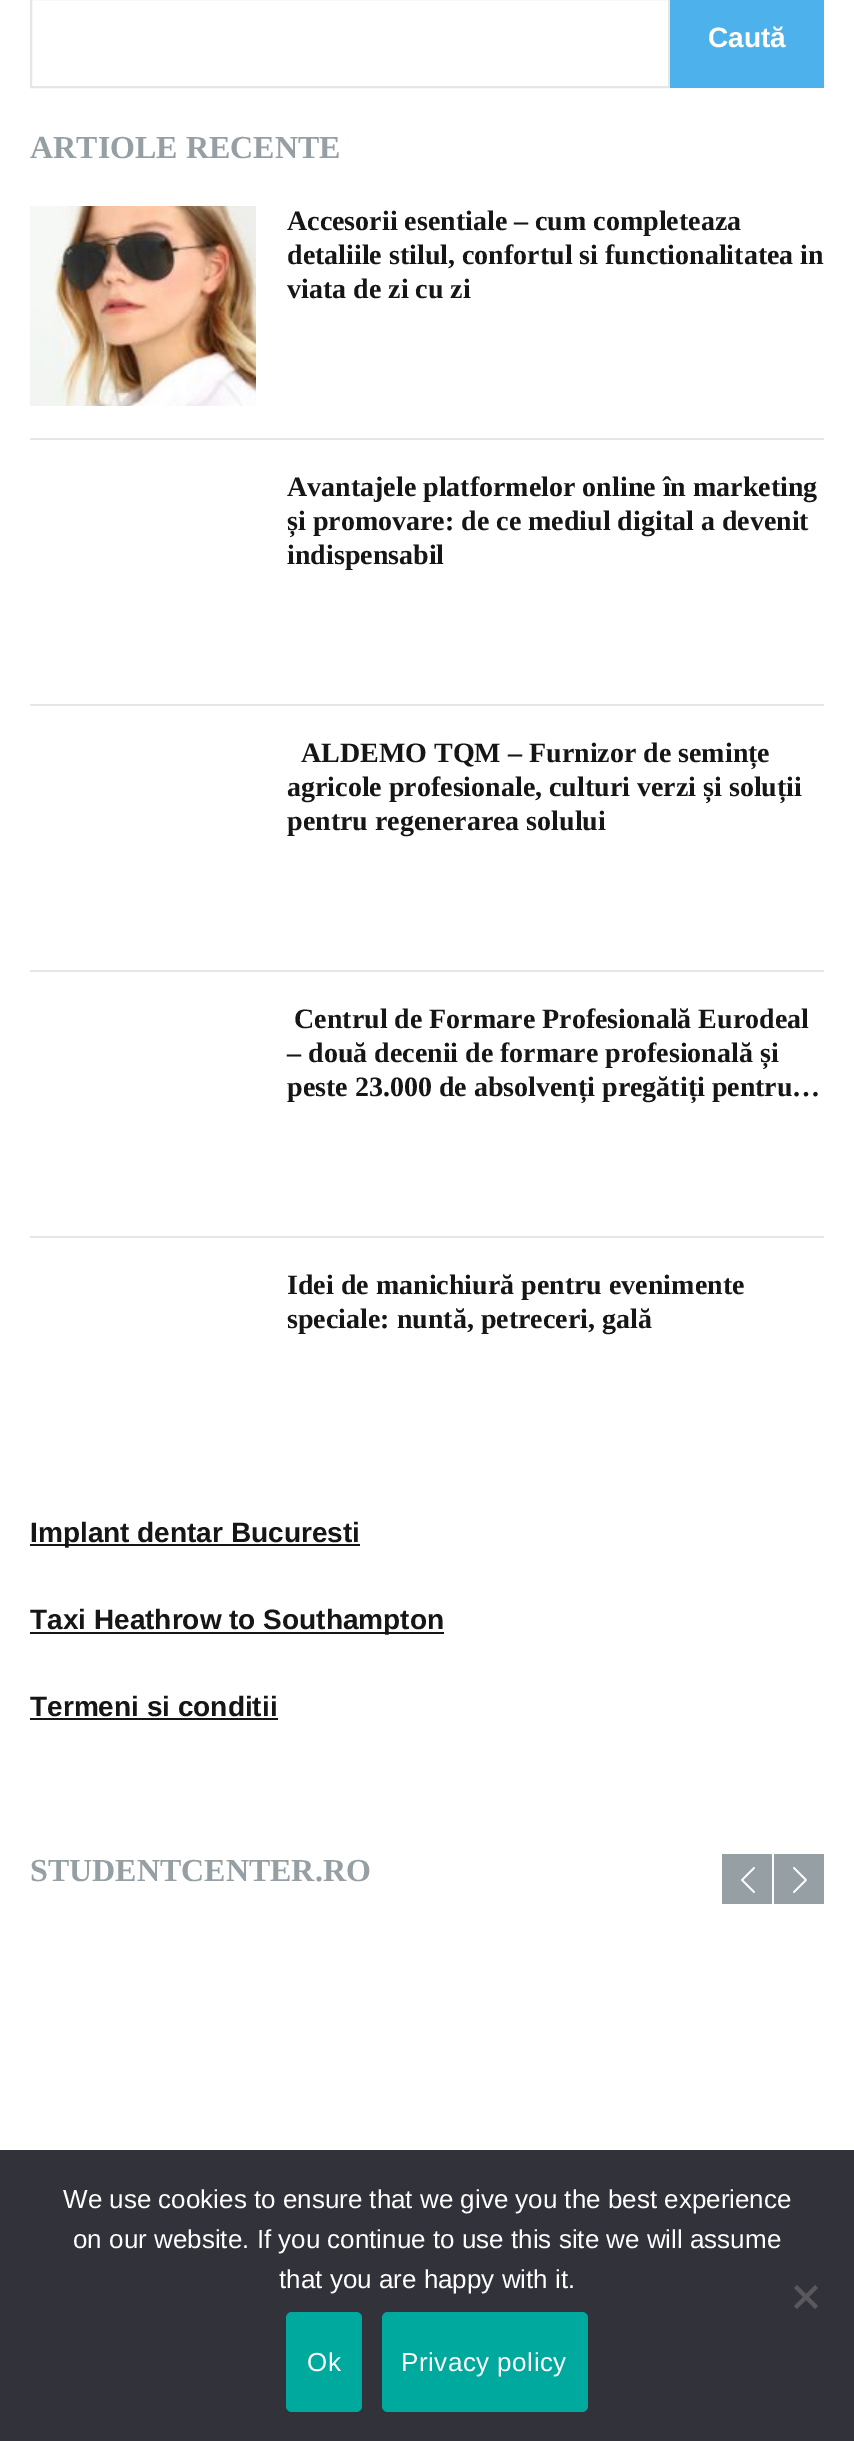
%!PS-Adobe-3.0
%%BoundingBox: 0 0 854 2441
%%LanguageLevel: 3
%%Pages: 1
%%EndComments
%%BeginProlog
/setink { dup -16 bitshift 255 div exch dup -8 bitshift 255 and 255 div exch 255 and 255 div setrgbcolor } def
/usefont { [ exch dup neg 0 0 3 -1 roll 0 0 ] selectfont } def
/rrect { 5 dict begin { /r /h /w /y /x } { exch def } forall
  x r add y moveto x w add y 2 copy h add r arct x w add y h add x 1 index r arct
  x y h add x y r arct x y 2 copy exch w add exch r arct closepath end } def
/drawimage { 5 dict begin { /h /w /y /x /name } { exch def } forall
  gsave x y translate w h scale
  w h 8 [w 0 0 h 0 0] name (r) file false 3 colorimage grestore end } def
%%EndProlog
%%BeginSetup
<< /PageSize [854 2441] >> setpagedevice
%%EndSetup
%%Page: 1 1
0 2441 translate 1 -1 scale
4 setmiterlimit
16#FFFFFF setink
0 0 854 2441 rectfill
16#E6E6E6 setink
2 setlinewidth
31 -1 638 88 rectstroke
16#4DB2EC setink
670 0 154 88 rectfill
/LiberationSans-Bold 28 usefont
16#FFFFFF setink
708 47 moveto (Caută) show
/LiberationSerif-Bold 32 usefont
16#969FA4 setink
30 158 moveto (ARTIOLE RECENTE) show
16#E6E6E6 setink
30 438 794 2 rectfill
(img1.raw) 30 206 226 200 drawimage
/LiberationSerif-Bold 28 usefont
16#161616 setink
[
    [(Accesorii esentiale – cum completeaza) 287 230]
    [(detaliile stilul, confortul si functionalitatea in) 287 264]
    [(viata de zi cu zi) 287 298]
] { aload pop moveto show } forall
16#E6E6E6 setink
30 704 794 2 rectfill
16#161616 setink
[
    [(Avantajele platformelor online în marketing) 287 496]
    [(și promovare: de ce mediul digital a devenit) 287 530]
    [(indispensabil) 287 564]
] { aload pop moveto show } forall
16#E6E6E6 setink
30 970 794 2 rectfill
16#161616 setink
[
    [(ALDEMO TQM – Furnizor de semințe) 301 762]
    [(agricole profesionale, culturi verzi și soluții) 287 796]
    [(pentru regenerarea solului) 287 830]
] { aload pop moveto show } forall
16#E6E6E6 setink
30 1236 794 2 rectfill
16#161616 setink
[
    [(Centrul de Formare Profesională Eurodeal) 294 1028]
    [(– două decenii de formare profesională și) 287 1062]
    [(peste 23.000 de absolvenți pregătiți pentru…) 287 1096]
    [(Idei de manichiură pentru evenimente) 287 1294]
    [(speciale: nuntă, petreceri, gală) 287 1328]
] { aload pop moveto show } forall
30 1544 330 2 rectfill
/LiberationSans-Bold 28 usefont
30 1542 moveto (Implant dentar Bucuresti) show
30 1632 414 2 rectfill
30 1629 moveto (Taxi Heathrow to Southampton) show
30 1716 moveto (Termeni si conditii) show
30 1718 248 2 rectfill
/LiberationSerif-Bold 32 usefont
16#969FA4 setink
30 1881 moveto (STUDENTCENTER.RO) show
722 1854 50 50 rectfill
(img2.raw) 741 1867 14 26 drawimage
774 1854 50 50 rectfill
(img3.raw) 793 1867 14 26 drawimage
16#32323A setink
0 2150 854 291 rectfill
/LiberationSans-Regular 26 usefont
16#FFFFFF setink
[
    [(We use cookies to ensure that we give you the best experience) 63 2208]
    [(on our website. If you continue to use this site we will assume) 73 2248]
    [(that you are happy with it.) 279 2288]
] { aload pop moveto show } forall
16#59595D setink
815 2285 moveto 818 2288 lineto 797 2309 lineto 794 2306 lineto closepath fill
794 2288 moveto 797 2285 lineto 818 2306 lineto 815 2309 lineto closepath fill
16#00A99D setink
286 2312 76 100 6 rrect fill
16#FFFFFF setink
307 2371 moveto 0.5 0 (Ok) ashow
16#00A99D setink
382 2312 206 100 6 rrect fill
16#FFFFFF setink
401 2371 moveto 0.5 0 (Privacy policy) ashow
showpage
%%EOF
